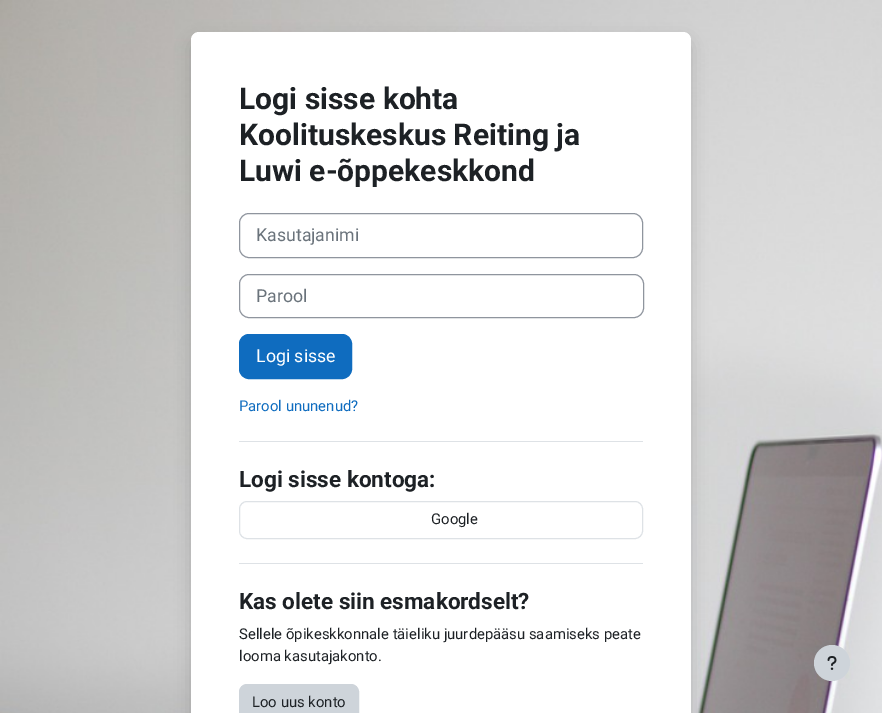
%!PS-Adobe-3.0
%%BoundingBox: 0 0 882 713
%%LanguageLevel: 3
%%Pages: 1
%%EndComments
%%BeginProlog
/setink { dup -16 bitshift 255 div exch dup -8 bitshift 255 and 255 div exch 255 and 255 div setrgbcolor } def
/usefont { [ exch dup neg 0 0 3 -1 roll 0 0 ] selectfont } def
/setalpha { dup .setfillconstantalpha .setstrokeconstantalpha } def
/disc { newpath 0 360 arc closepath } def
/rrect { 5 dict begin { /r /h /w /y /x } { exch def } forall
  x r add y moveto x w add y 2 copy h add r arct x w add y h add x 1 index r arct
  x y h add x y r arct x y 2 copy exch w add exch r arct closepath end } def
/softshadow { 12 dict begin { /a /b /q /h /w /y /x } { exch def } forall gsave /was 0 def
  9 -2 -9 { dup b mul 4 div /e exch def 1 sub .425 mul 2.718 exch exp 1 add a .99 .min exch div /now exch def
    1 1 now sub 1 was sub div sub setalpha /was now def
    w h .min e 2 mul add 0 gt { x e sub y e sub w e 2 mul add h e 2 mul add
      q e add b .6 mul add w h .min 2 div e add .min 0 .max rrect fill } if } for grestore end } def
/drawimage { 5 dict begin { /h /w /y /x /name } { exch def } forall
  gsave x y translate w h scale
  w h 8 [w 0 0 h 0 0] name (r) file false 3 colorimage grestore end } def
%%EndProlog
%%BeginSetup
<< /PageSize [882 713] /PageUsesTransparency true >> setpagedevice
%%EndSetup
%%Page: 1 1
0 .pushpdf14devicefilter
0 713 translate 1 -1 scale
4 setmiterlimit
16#FFFFFF setink
0 0 882 713 rectfill
(img1.raw) 0 0 882 713 drawimage
16#000000 setink
191 40 500 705 8 8 0.15 softshadow
16#FFFFFF setink
191 32 500 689 8 rrect fill
/Roboto-Bold 30 usefont
16#1D2125 setink
[
    [(Logi sisse kohta) 239 109]
    [(Koolituskeskus Reiting ja) 239 145]
    [(Luwi e-õppekeskkond) 239 181]
] { aload pop moveto show } forall
16#8F959E setink
239.5 213.5 403 44 9.5 rrect stroke
/Roboto-Regular 17.75 usefont
16#6A737B setink
256 241 moveto (Kasutajanimi) show
16#8F959E setink
239.5 274.5 404 43 9.5 rrect stroke
16#6A737B setink
256 302 moveto (Parool) show
16#0F6CBF setink
239.5 334.5 112 44 9.5 rrect gsave fill grestore
stroke
16#FFFFFF setink
256 362 moveto (Logi sisse) show
/Roboto-Regular 14.85 usefont
16#0F6CBF setink
239 411 moveto (Parool ununenud?) show
16#DEE2E6 setink
239 441 404 1 rectfill
/Roboto-Bold 22.5 usefont
16#1D2125 setink
239 487 moveto (Logi sisse kontoga:) show
16#DEE2E6 setink
239.5 501.5 403 37 7.5 rrect stroke
/Roboto-Regular 14.85 usefont
16#1D2125 setink
431 524 moveto (Google) show
16#DEE2E6 setink
239 563 404 1 rectfill
/Roboto-Bold 22.5 usefont
16#1D2125 setink
239 609 moveto (Kas olete siin esmakordselt?) show
/Roboto-Regular 14.85 usefont
239 639 moveto (Sellele õpikeskkonnale täieliku juurdepääsu saamiseks peate) show
239 661 moveto (looma kasutajakonto.) show
16#CED4DA setink
239.5 684.5 119 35 7.5 rrect gsave fill grestore
stroke
16#1D2125 setink
252 707 moveto (Loo uus konto) show
16#CED4DA setink
832 663 18 disc fill
(img2.raw) 827 656 10 14 drawimage
.poppdf14devicefilter showpage
%%EOF
